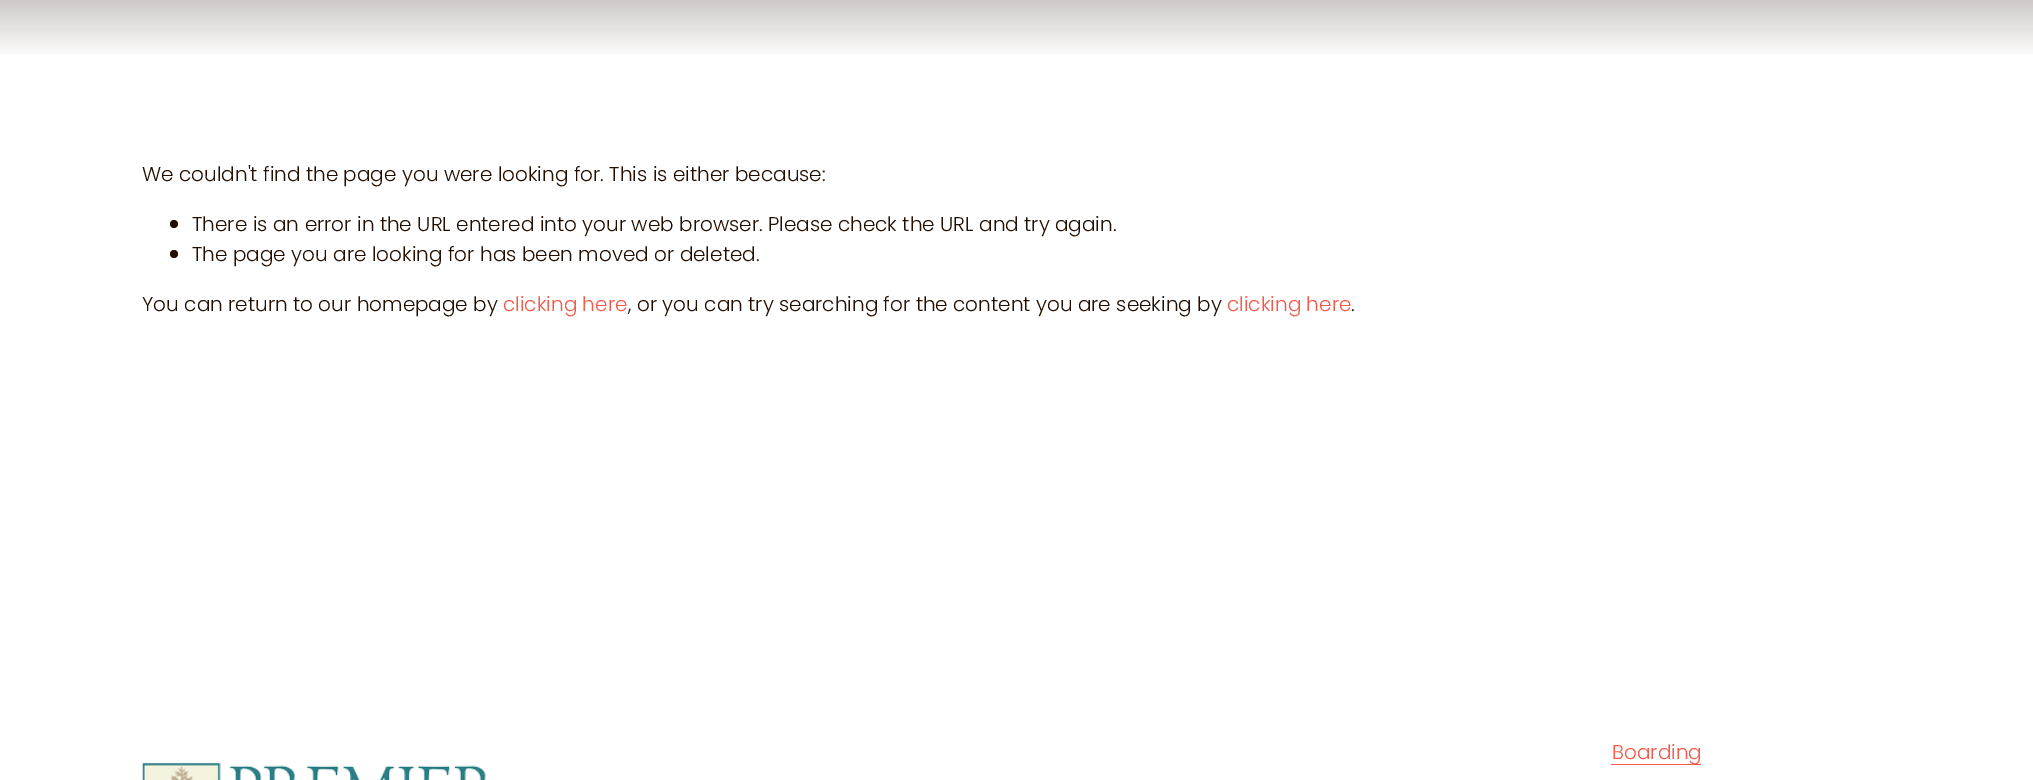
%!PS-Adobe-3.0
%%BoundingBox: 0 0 2033 780
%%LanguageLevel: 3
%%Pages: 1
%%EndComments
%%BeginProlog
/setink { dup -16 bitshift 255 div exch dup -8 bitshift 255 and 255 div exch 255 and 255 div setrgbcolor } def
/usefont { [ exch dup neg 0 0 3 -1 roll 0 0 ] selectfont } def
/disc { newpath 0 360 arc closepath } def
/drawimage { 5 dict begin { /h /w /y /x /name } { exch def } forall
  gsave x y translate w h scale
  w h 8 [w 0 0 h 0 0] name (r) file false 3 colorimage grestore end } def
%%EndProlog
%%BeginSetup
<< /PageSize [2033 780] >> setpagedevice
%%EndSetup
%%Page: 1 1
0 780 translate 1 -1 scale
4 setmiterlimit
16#FFFFFF setink
0 0 2033 780 rectfill
gsave 0 0 moveto 2033 0 lineto 2033 55 lineto 0 55 lineto closepath clip newpath
<< /ShadingType 2 /ColorSpace /DeviceRGB /Coords [1017 -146 1017 58] /Extend [true true] /Function << /FunctionType 2 /Domain [0 1] /C0 [0.318 0.255 0.212] /C1 [1 1 1] /N 1 >> >> shfill grestore
/Poppins-Light 20 usefont
16#230F00 setink
142 181 moveto (We couldn't find the page you were looking for. This is either because:) show
174 224 4 disc fill
192 231 moveto (There is an error in the URL entered into your web browser. Please check the URL and try again.) show
174 254 4 disc fill
192 261 moveto (The page you are looking for has been moved or deleted.) show
142 311 moveto (You can return to our homepage by) show
16#F35A4A setink
503 311 moveto (clicking here) show
16#230F00 setink
628 311 moveto (, or you can try searching for the content you are seeking by) show
16#F35A4A setink
1227 311 moveto (clicking here) show
16#230F00 setink
1351 311 moveto (.) show
16#F35A4A setink
1611 764 90 1 rectfill
1612 759 moveto (Boarding) show
(img1.raw) 142 763 344 17 drawimage
showpage
%%EOF
